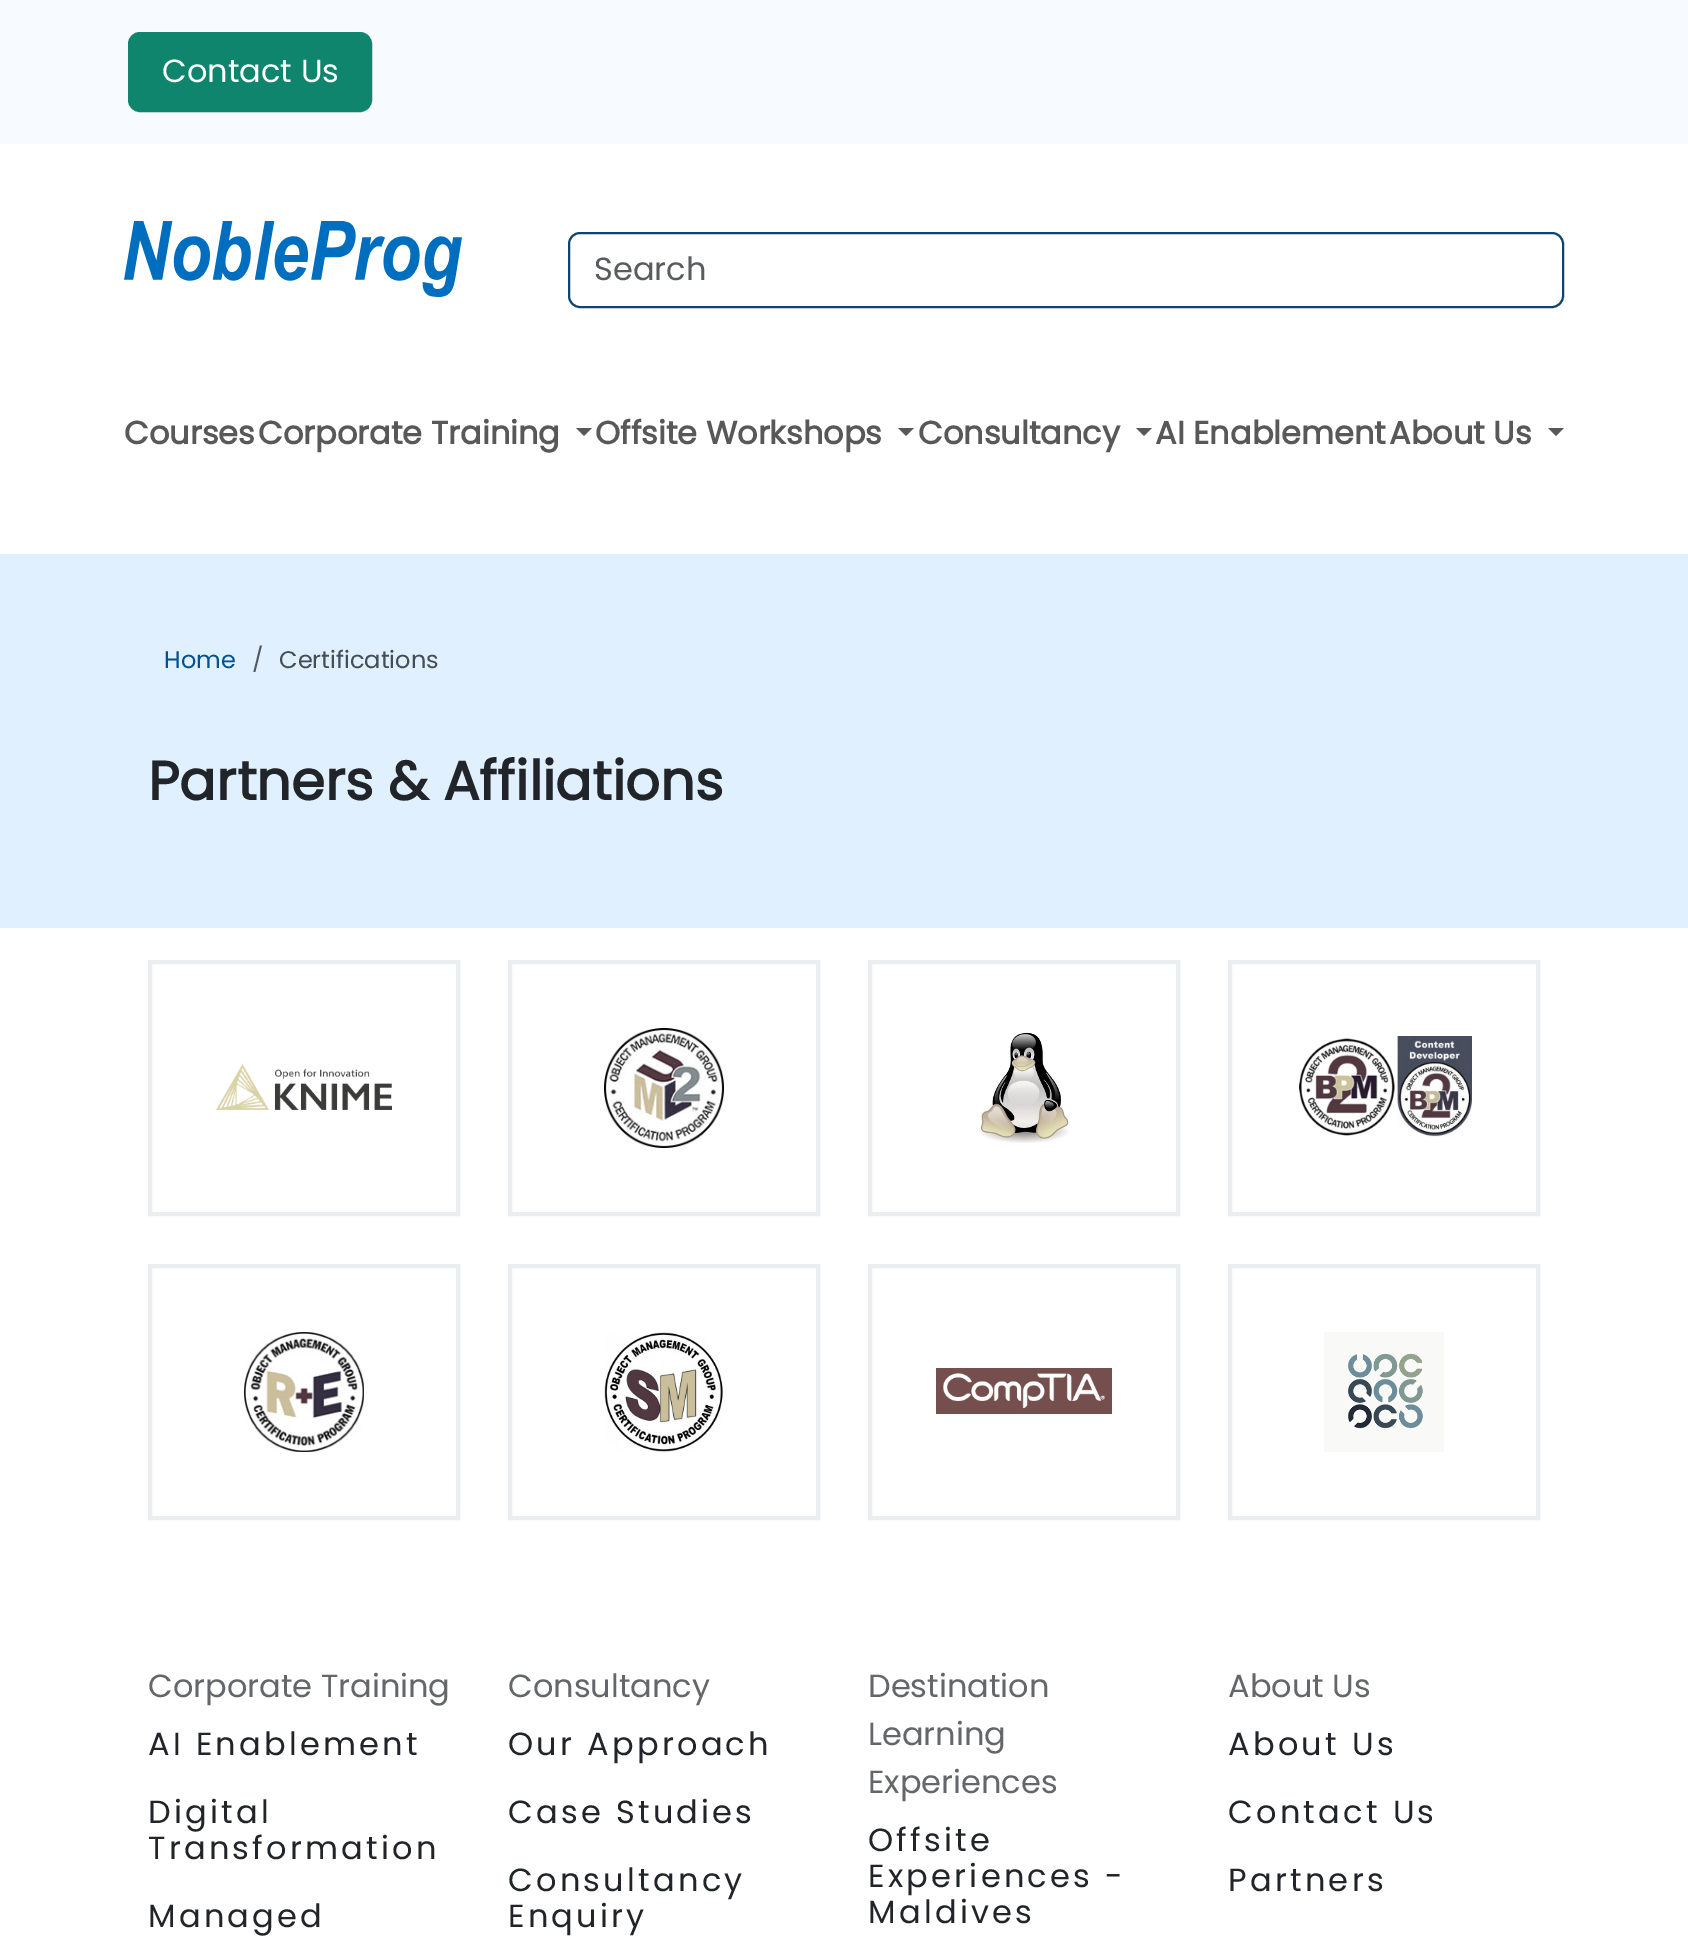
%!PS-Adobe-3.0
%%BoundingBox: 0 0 1688 1948
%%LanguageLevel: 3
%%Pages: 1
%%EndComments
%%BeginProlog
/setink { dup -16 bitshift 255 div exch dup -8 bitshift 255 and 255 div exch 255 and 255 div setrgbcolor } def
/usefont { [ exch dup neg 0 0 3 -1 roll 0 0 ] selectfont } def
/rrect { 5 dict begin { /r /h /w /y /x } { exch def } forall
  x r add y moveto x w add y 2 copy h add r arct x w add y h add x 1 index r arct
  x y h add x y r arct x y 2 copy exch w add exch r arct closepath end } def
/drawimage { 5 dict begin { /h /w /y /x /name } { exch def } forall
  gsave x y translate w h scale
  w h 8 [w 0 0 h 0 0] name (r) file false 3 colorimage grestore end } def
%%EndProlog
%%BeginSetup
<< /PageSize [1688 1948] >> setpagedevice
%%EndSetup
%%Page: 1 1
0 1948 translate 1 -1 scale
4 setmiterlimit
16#FFFFFF setink
0 0 1688 1948 rectfill
16#F7FBFF setink
0 0 1688 144 rectfill
16#0F856D setink
129 33 242 78 11 rrect gsave fill grestore
2 setlinewidth
stroke
/Poppins-Regular 32 usefont
16#FFFFFF setink
162 82 moveto (Contact Us) show
(img1.raw) 124 221 338 76 drawimage
16#0F4371 setink
569 233 994 74 11 rrect stroke
16#595C5F setink
594 280 moveto (Search) show
/Poppins-Bold 32 usefont
16#585858 setink
124 444 moveto (Courses) show
258 444 moveto (Corporate Training) show
576 428 moveto 592 428 lineto 584 436 lineto closepath fill
595 444 moveto (Offsite Workshops) show
898 428 moveto 914 428 lineto 906 436 lineto closepath fill
918 444 moveto (Consultancy) show
1136 428 moveto 1152 428 lineto 1144 436 lineto closepath fill
1155 444 moveto (AI Enablement) show
1389 444 moveto (About Us) show
1548 428 moveto 1564 428 lineto 1556 436 lineto closepath fill
16#E0F0FE setink
0 554 1688 374 rectfill
/Poppins-Regular 24 usefont
16#005390 setink
164 668 moveto (Home) show
16#51585E setink
252 668 moveto (/) show
16#444C55 setink
279 668 moveto (Certifications) show
/Poppins-Bold 54.4 usefont
16#212529 setink
148 800 moveto (Partners & Affiliations) show
16#EBEEF1 setink
4 setlinewidth
150 962 308 252 rectstroke
(img2.raw) 216 1064 176 46 drawimage
510 962 308 252 rectstroke
(img3.raw) 604 1028 120 120 drawimage
870 962 308 252 rectstroke
(img4.raw) 979 1032 90 111 drawimage
1230 962 308 252 rectstroke
(img5.raw) 1299 1036 173 101 drawimage
150 1266 308 252 rectstroke
(img6.raw) 244 1332 120 120 drawimage
510 1266 308 252 rectstroke
(img7.raw) 604 1332 119 120 drawimage
870 1266 308 252 rectstroke
(img8.raw) 936 1368 176 46 drawimage
1230 1266 308 252 rectstroke
(img9.raw) 1324 1332 120 120 drawimage
/Poppins-Regular 32 usefont
16#646669 setink
148 1697 moveto (Corporate Training) show
16#212529 setink
148 1755 moveto 3.25 0 (AI Enablement) ashow
148 1823 moveto 3.25 0 (Digital) ashow
148 1859 moveto 3.25 0 (Transformation) ashow
148 1927 moveto 3.25 0 (Managed) ashow
16#646669 setink
508 1697 moveto (Consultancy) show
16#212529 setink
508 1755 moveto 3.25 0 (Our Approach) ashow
508 1823 moveto 3.25 0 (Case Studies) ashow
508 1891 moveto 3.25 0 (Consultancy) ashow
508 1927 moveto 3.25 0 (Enquiry) ashow
16#646669 setink
[
    [(Destination) 868 1697]
    [(Learning) 868 1745]
    [(Experiences) 868 1793]
] { aload pop moveto show } forall
16#212529 setink
868 1851 moveto 3.25 0 (Offsite) ashow
868 1887 moveto 3.25 0 (Experiences -) ashow
868 1923 moveto 3.25 0 (Maldives) ashow
16#646669 setink
1228 1697 moveto (About Us) show
16#212529 setink
1228 1755 moveto 3.25 0 (About Us) ashow
1228 1823 moveto 3.25 0 (Contact Us) ashow
1228 1891 moveto 3.25 0 (Partners) ashow
showpage
%%EOF
